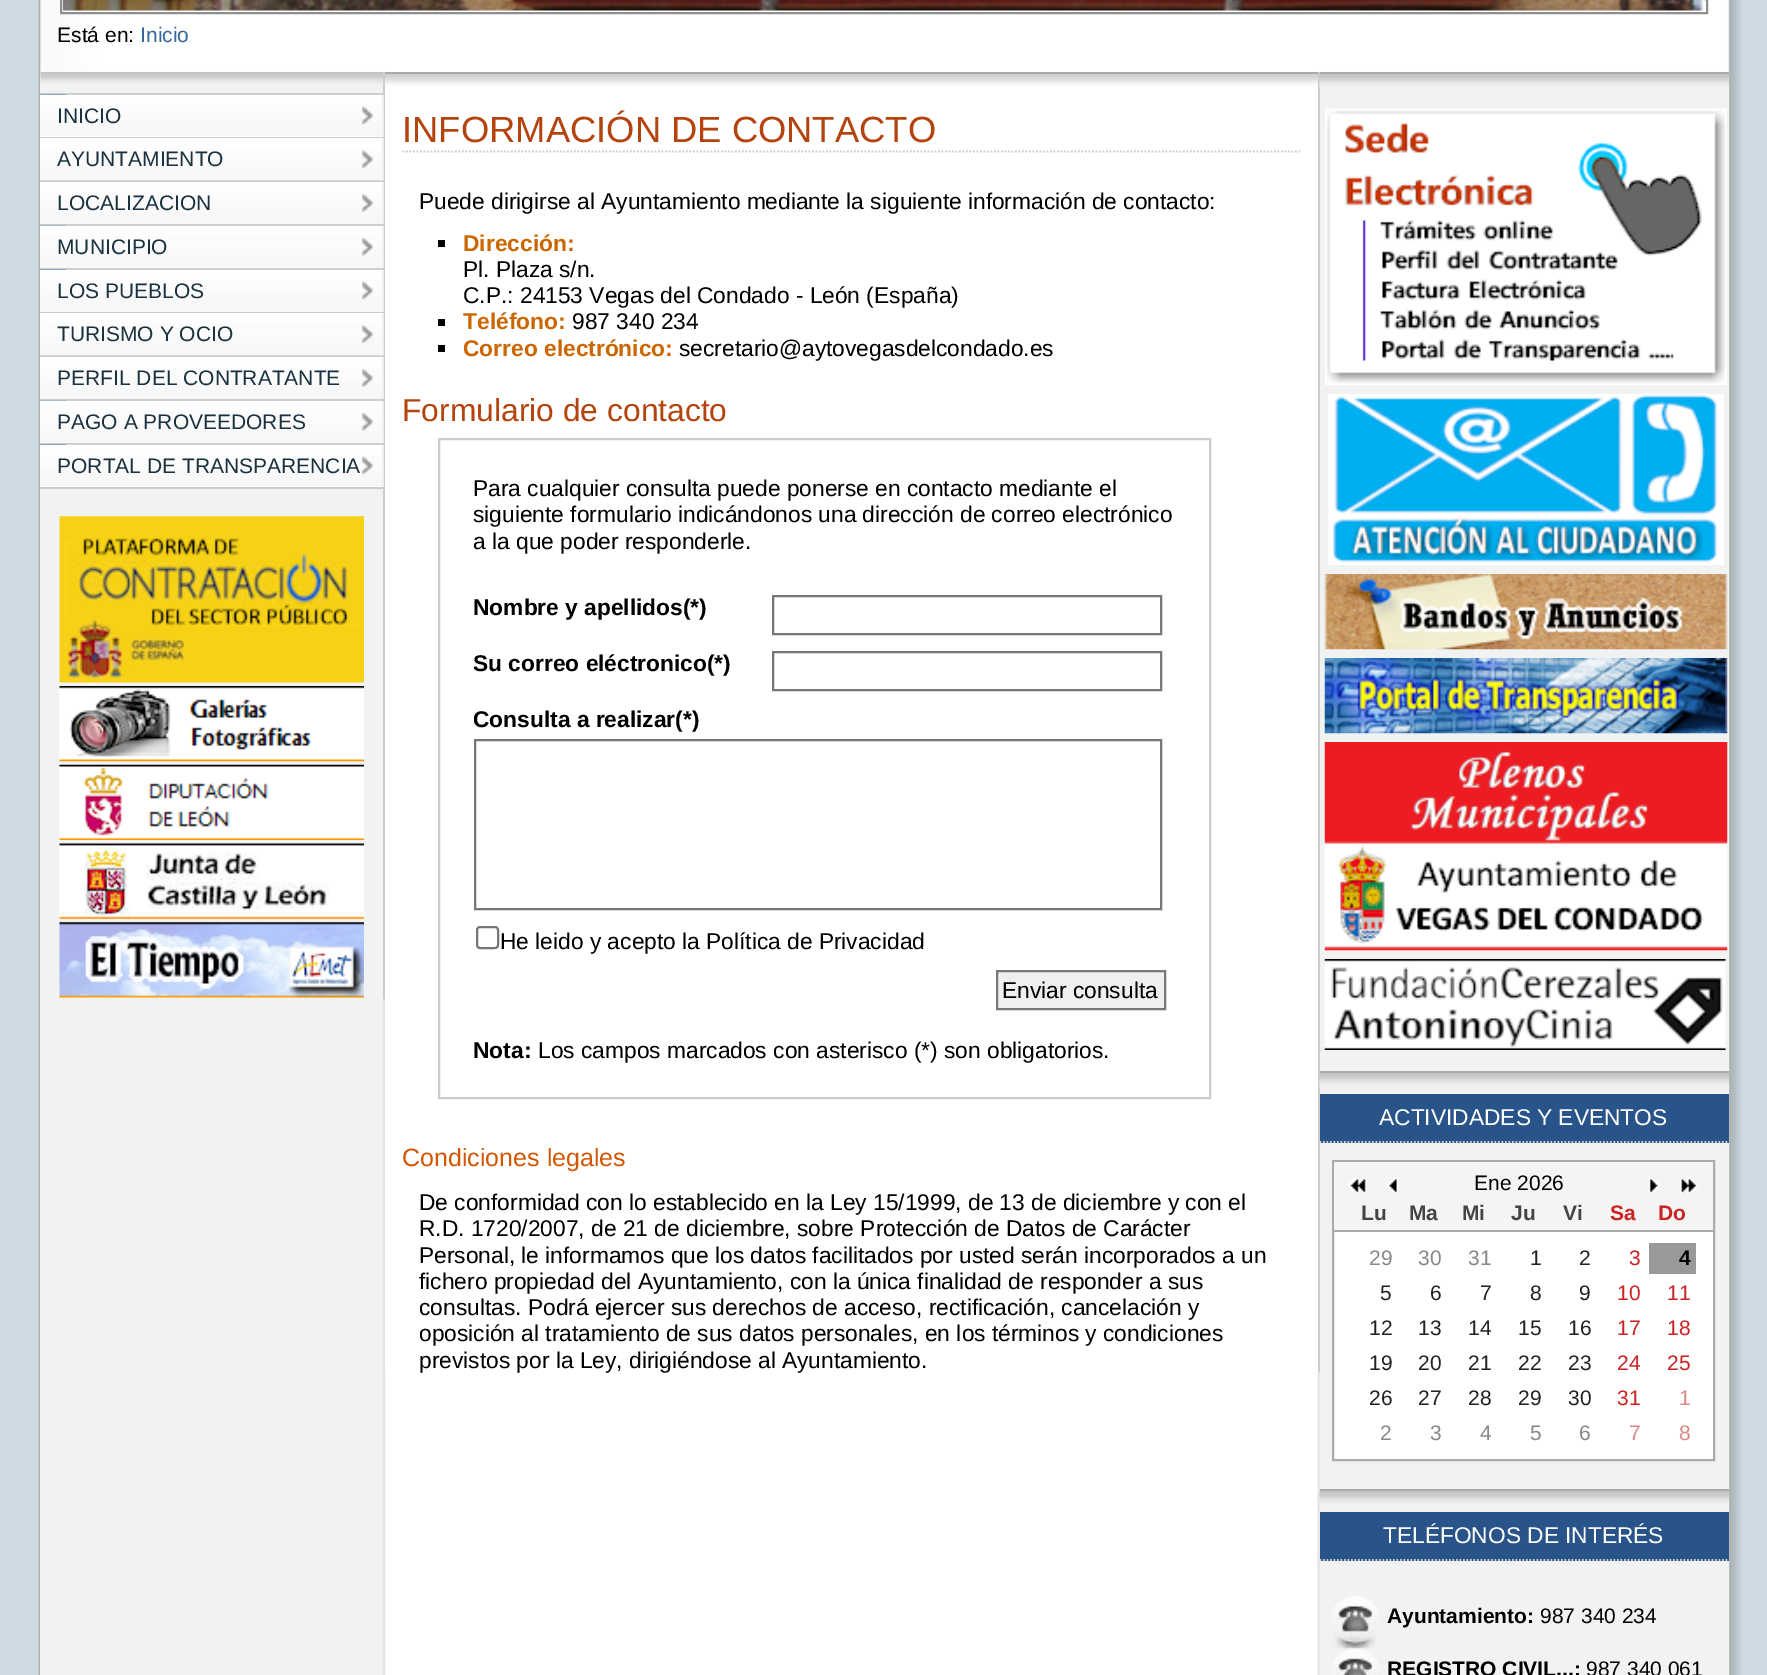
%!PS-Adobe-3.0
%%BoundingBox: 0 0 1767 1675
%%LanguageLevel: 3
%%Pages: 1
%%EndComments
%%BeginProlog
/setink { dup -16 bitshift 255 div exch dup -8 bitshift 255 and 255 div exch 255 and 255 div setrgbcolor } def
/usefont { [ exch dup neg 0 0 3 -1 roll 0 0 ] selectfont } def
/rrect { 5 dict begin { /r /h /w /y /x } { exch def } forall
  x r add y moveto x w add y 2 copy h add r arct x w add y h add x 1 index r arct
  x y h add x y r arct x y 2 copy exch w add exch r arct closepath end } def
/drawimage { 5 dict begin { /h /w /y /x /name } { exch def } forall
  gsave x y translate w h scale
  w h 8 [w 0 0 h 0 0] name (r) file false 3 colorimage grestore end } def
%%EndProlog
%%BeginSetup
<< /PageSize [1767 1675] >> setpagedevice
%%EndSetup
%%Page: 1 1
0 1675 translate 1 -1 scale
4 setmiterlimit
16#CEDBE3 setink
0 0 1767 1675 rectfill
(img1.raw) 38 0 1704 1675 drawimage
16#8F8F8F setink
2 setlinewidth
61 -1 1646 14 rectstroke
(img2.raw) 63 0 1641 11 drawimage
/LiberationSans-Regular 21 usefont
16#000000 setink
57 42 moveto (Está en:) show
16#336699 setink
140 42 moveto (Inicio) show
(img3.raw) 40 71 1689 1604 drawimage
16#F1F2F2 setink
40 72 1 927 rectfill
(img4.raw) 40 72 343 12 drawimage
16#CCCCCC setink
383 72 2 927 rectfill
40 93 343 2 rectfill
(img5.raw) 40 94 343 1 drawimage
40 137 343 1 rectfill
16#FFFFFF setink
40 95 342 42 rectfill
(img6.raw) 40 96 342 41 drawimage
16#EEEEEE setink
382 95 2 42 rectfill
(img7.raw) 362 106 11 19 drawimage
16#1A3240 setink
57 123 moveto (INICIO) show
16#CCCCCC setink
40 180 343 2 rectfill
16#FFFFFF setink
40 138 342 42 rectfill
(img8.raw) 40 140 344 41 drawimage
16#EEEEEE setink
382 138 2 42 rectfill
(img9.raw) 362 150 11 18 drawimage
16#1A3240 setink
57 166 moveto (AYUNTAMIENTO) show
16#CCCCCC setink
40 224 343 2 rectfill
16#FFFFFF setink
40 182 342 42 rectfill
(img10.raw) 40 184 342 40 drawimage
16#EEEEEE setink
382 182 2 42 rectfill
(img11.raw) 362 194 11 18 drawimage
16#1A3240 setink
57 210 moveto (LOCALIZACION) show
(img12.raw) 40 225 343 1 drawimage
16#CCCCCC setink
40 268 343 2 rectfill
16#FFFFFF setink
40 226 342 42 rectfill
(img13.raw) 40 227 342 41 drawimage
16#EEEEEE setink
382 226 2 42 rectfill
(img14.raw) 362 238 11 18 drawimage
16#1A3240 setink
57 254 moveto (MUNICIPIO) show
(img5.raw) 40 269 343 1 drawimage
16#CCCCCC setink
40 312 343 1 rectfill
16#FFFFFF setink
40 270 342 42 rectfill
(img6.raw) 40 271 342 41 drawimage
16#EEEEEE setink
382 270 2 42 rectfill
(img7.raw) 362 281 11 19 drawimage
16#1A3240 setink
57 298 moveto (LOS PUEBLOS) show
16#CCCCCC setink
40 355 343 2 rectfill
16#FFFFFF setink
40 313 342 42 rectfill
(img8.raw) 40 315 344 41 drawimage
16#EEEEEE setink
382 313 2 42 rectfill
(img9.raw) 362 325 11 18 drawimage
16#1A3240 setink
57 341 moveto (TURISMO Y OCIO) show
16#CCCCCC setink
40 399 343 2 rectfill
16#FFFFFF setink
40 357 342 42 rectfill
(img10.raw) 40 359 342 40 drawimage
16#EEEEEE setink
382 357 2 42 rectfill
(img11.raw) 362 369 11 18 drawimage
16#1A3240 setink
57 385 moveto (PERFIL DEL CONTRATANTE) show
(img12.raw) 40 400 343 1 drawimage
16#CCCCCC setink
40 443 343 2 rectfill
16#FFFFFF setink
40 401 342 42 rectfill
(img13.raw) 40 402 342 41 drawimage
16#EEEEEE setink
382 401 2 42 rectfill
(img14.raw) 362 413 11 18 drawimage
16#1A3240 setink
57 429 moveto (PAGO A PROVEEDORES) show
(img5.raw) 40 444 343 1 drawimage
16#CCCCCC setink
40 487 343 2 rectfill
16#FFFFFF setink
40 445 342 42 rectfill
(img6.raw) 40 446 342 41 drawimage
16#EEEEEE setink
382 445 2 42 rectfill
(img7.raw) 362 456 11 19 drawimage
16#1A3240 setink
57 473 moveto (PORTAL DE TRANSPARENCIA) show
(img15.raw) 59 516 305 167 drawimage
(img16.raw) 59 686 305 76 drawimage
(img17.raw) 59 764 305 76 drawimage
(img18.raw) 59 843 305 76 drawimage
(img19.raw) 59 922 305 76 drawimage
16#FFFFFF setink
385 86 933 1286 rectfill
(img20.raw) 385 74 933 12 drawimage
16#AAAAAA setink
385 72 935 2 rectfill
16#CCCCCC setink
1318 72 2 1300 rectfill
1.8 setlinewidth
[1.75 1.75] 0 setdash
402.5 151.5 moveto 1300 151.5 lineto stroke
/LiberationSans-Regular 36.4 usefont
16#B4430D setink
402 142 moveto (INFORMACIÓN DE CONTACTO) show
/LiberationSans-Regular 22.75 usefont
16#000000 setink
419 209 moveto (Puede dirigirse al Ayuntamiento mediante la siguiente información de contacto:) show
438 240 7 7 rectfill
/LiberationSans-Bold 22.75 usefont
16#CC6600 setink
463 251 moveto (Dirección:) show
/LiberationSans-Regular 22.75 usefont
16#000000 setink
463 277 moveto (Pl. Plaza s/n.) show
463 303 moveto (C.P.: 24153 Vegas del Condado - León \(España\)) show
438 319 7 7 rectfill
/LiberationSans-Bold 22.75 usefont
16#CC6600 setink
463 329 moveto (Teléfono:) show
/LiberationSans-Regular 22.75 usefont
16#000000 setink
572 329 moveto (987 340 234) show
438 345 7 7 rectfill
/LiberationSans-Bold 22.75 usefont
16#CC6600 setink
463 356 moveto (Correo electrónico:) show
/LiberationSans-Regular 22.75 usefont
16#000000 setink
679 356 moveto (secretario@aytovegasdelcondado.es) show
/LiberationSans-Regular 31.8 usefont
16#B4430D setink
402 421 moveto (Formulario de contacto) show
16#CCCCCC setink
2 setlinewidth
[] 0 setdash
439 439 771 659 rectstroke
/LiberationSans-Regular 22.75 usefont
16#000000 setink
[
    [(Para cualquier consulta puede ponerse en contacto mediante el) 473 496]
    [(siguiente formulario indicándonos una dirección de correo electrónico) 473 522]
    [(a la que poder responderle.) 473 549]
] { aload pop moveto show } forall
/LiberationSans-Bold 22.75 usefont
473 615 moveto (Nombre y apellidos\(*\)) show
16#777777 setink
773 596 388 38 rectstroke
16#000000 setink
473 671 moveto (Su correo eléctronico\(*\)) show
16#777777 setink
773 652 388 38 rectstroke
16#000000 setink
473 727 moveto (Consulta a realizar\(*\)) show
16#777777 setink
475 740 686 169 rectstroke
16#767676 setink
477 927 21 21 3 rrect stroke
/LiberationSans-Regular 22.75 usefont
16#000000 setink
500 949 moveto (He leido y acepto la Política de Privacidad) show
16#EFEFEF setink
997 971 moveto 1165 971 lineto 1165 1009 lineto 997 1009 lineto closepath gsave fill grestore
16#777777 setink
stroke
16#000000 setink
1002 998 moveto (Enviar consulta) show
/LiberationSans-Bold 22.75 usefont
473 1058 moveto (Nota:) show
/LiberationSans-Regular 22.75 usefont
538 1058 moveto (Los campos marcados con asterisco \(*\) son obligatorios.) show
/LiberationSans-Regular 25 usefont
16#D55602 setink
402 1166 moveto (Condiciones legales) show
/LiberationSans-Regular 22.75 usefont
16#000000 setink
[
    [(De conformidad con lo establecido en la Ley 15/1999, de 13 de diciembre y con el) 419 1210]
    [(R.D. 1720/2007, de 21 de diciembre, sobre Protección de Datos de Carácter) 419 1236]
    [(Personal, le informamos que los datos facilitados por usted serán incorporados a un) 419 1263]
    [(fichero propiedad del Ayuntamiento, con la única finalidad de responder a sus) 419 1289]
    [(consultas. Podrá ejercer sus derechos de acceso, rectificación, cancelación y) 419 1315]
    [(oposición al tratamiento de sus datos personales, en los términos y condiciones) 419 1341]
    [(previstos por la Ley, dirigiéndose al Ayuntamiento.) 419 1368]
] { aload pop moveto show } forall
(img21.raw) 1319 73 410 17 drawimage
16#AAAAAA setink
1320 72 409 2 rectfill
(img22.raw) 1325 108 402 277 drawimage
(img23.raw) 1328 394 396 171 drawimage
(img24.raw) 1324 574 404 76 drawimage
(img25.raw) 1324 658 404 76 drawimage
(img26.raw) 1324 742 404 209 drawimage
(img27.raw) 1324 959 402 91 drawimage
(img28.raw) 1319 1072 410 17 drawimage
1320 1071 409 2 rectfill
16#29548A setink
1320 1094 409 49 rectfill
16#CCCCCC setink
1.8 setlinewidth
[1.75 1.75] 0 setdash
1319.5 1142 moveto 1729 1142 lineto stroke
16#FFFFFF setink
1379 1125 moveto (ACTIVIDADES Y EVENTOS) show
1334 1232 379 227 rectfill
16#AAAAAA setink
2 setlinewidth
[] 0 setdash
1333 1161 381 299 rectstroke
16#F4F4F4 setink
1334 1162 379 68 rectfill
16#AAAAAA setink
1334 1230 379 2 rectfill
(img29.raw) 1347 1178 20 16 drawimage
(img30.raw) 1386 1178 13 16 drawimage
/LiberationSans-Regular 21 usefont
16#000000 setink
1474 1190 moveto (Ene 2026) show
(img31.raw) 1648 1178 13 16 drawimage
(img32.raw) 1680 1178 19 16 drawimage
/LiberationSans-Bold 21 usefont
16#444444 setink
[
    [(Lu) 1361 1220]
    [(Ma) 1409 1220]
    [(Mi) 1462 1220]
    [(Ju) 1511 1220]
    [(Vi) 1563 1220]
] { aload pop moveto show } forall
16#CC2222 setink
1610 1220 moveto (Sa) show
1658 1220 moveto (Do) show
/LiberationSans-Regular 21 usefont
16#888888 setink
[
    [(29) 1369 1265]
    [(30) 1418 1265]
    [(31) 1468 1265]
] { aload pop moveto show } forall
16#222222 setink
1530 1265 moveto (1) show
1579 1265 moveto (2) show
16#CC2222 setink
1629 1265 moveto (3) show
16#999999 setink
1649 1243 47 31 rectfill
/LiberationSans-Bold 21 usefont
16#000000 setink
1679 1265 moveto (4) show
/LiberationSans-Regular 21 usefont
16#222222 setink
[
    [(5) 1380 1300]
    [(6) 1430 1300]
    [(7) 1480 1300]
    [(8) 1530 1300]
    [(9) 1579 1300]
] { aload pop moveto show } forall
16#CC2222 setink
1617 1300 moveto (10) show
1667 1300 moveto (11) show
16#222222 setink
[
    [(12) 1369 1335]
    [(13) 1418 1335]
    [(14) 1468 1335]
    [(15) 1518 1335]
    [(16) 1568 1335]
] { aload pop moveto show } forall
16#CC2222 setink
1617 1335 moveto (17) show
1667 1335 moveto (18) show
16#222222 setink
[
    [(19) 1369 1370]
    [(20) 1418 1370]
    [(21) 1468 1370]
    [(22) 1518 1370]
    [(23) 1568 1370]
] { aload pop moveto show } forall
16#CC2222 setink
1617 1370 moveto (24) show
1667 1370 moveto (25) show
16#222222 setink
[
    [(26) 1369 1405]
    [(27) 1418 1405]
    [(28) 1468 1405]
    [(29) 1518 1405]
    [(30) 1568 1405]
] { aload pop moveto show } forall
16#CC2222 setink
1617 1405 moveto (31) show
16#DD8888 setink
1679 1405 moveto (1) show
16#888888 setink
[
    [(2) 1380 1440]
    [(3) 1430 1440]
    [(4) 1480 1440]
    [(5) 1530 1440]
    [(6) 1579 1440]
] { aload pop moveto show } forall
16#DD8888 setink
1629 1440 moveto (7) show
1679 1440 moveto (8) show
(img33.raw) 1319 1491 410 16 drawimage
16#AAAAAA setink
1320 1489 409 2 rectfill
16#29548A setink
1320 1512 409 49 rectfill
16#CCCCCC setink
1.8 setlinewidth
[1.75 1.75] 0 setdash
1319.5 1560 moveto 1729 1560 lineto stroke
/LiberationSans-Regular 22.75 usefont
16#FFFFFF setink
1383 1543 moveto (TELÉFONOS DE INTERÉS) show
(img34.raw) 1331 1596 51 53 drawimage
/LiberationSans-Bold 21 usefont
16#000000 setink
1387 1623 moveto (Ayuntamiento:) show
/LiberationSans-Regular 21 usefont
1540 1623 moveto (987 340 234) show
(img35.raw) 1329 1648 53 27 drawimage
/LiberationSans-Bold 21 usefont
1387 1676 moveto (REGISTRO CIVIL...:) show
/LiberationSans-Regular 21 usefont
1586 1676 moveto (987 340 061) show
showpage
%%EOF
